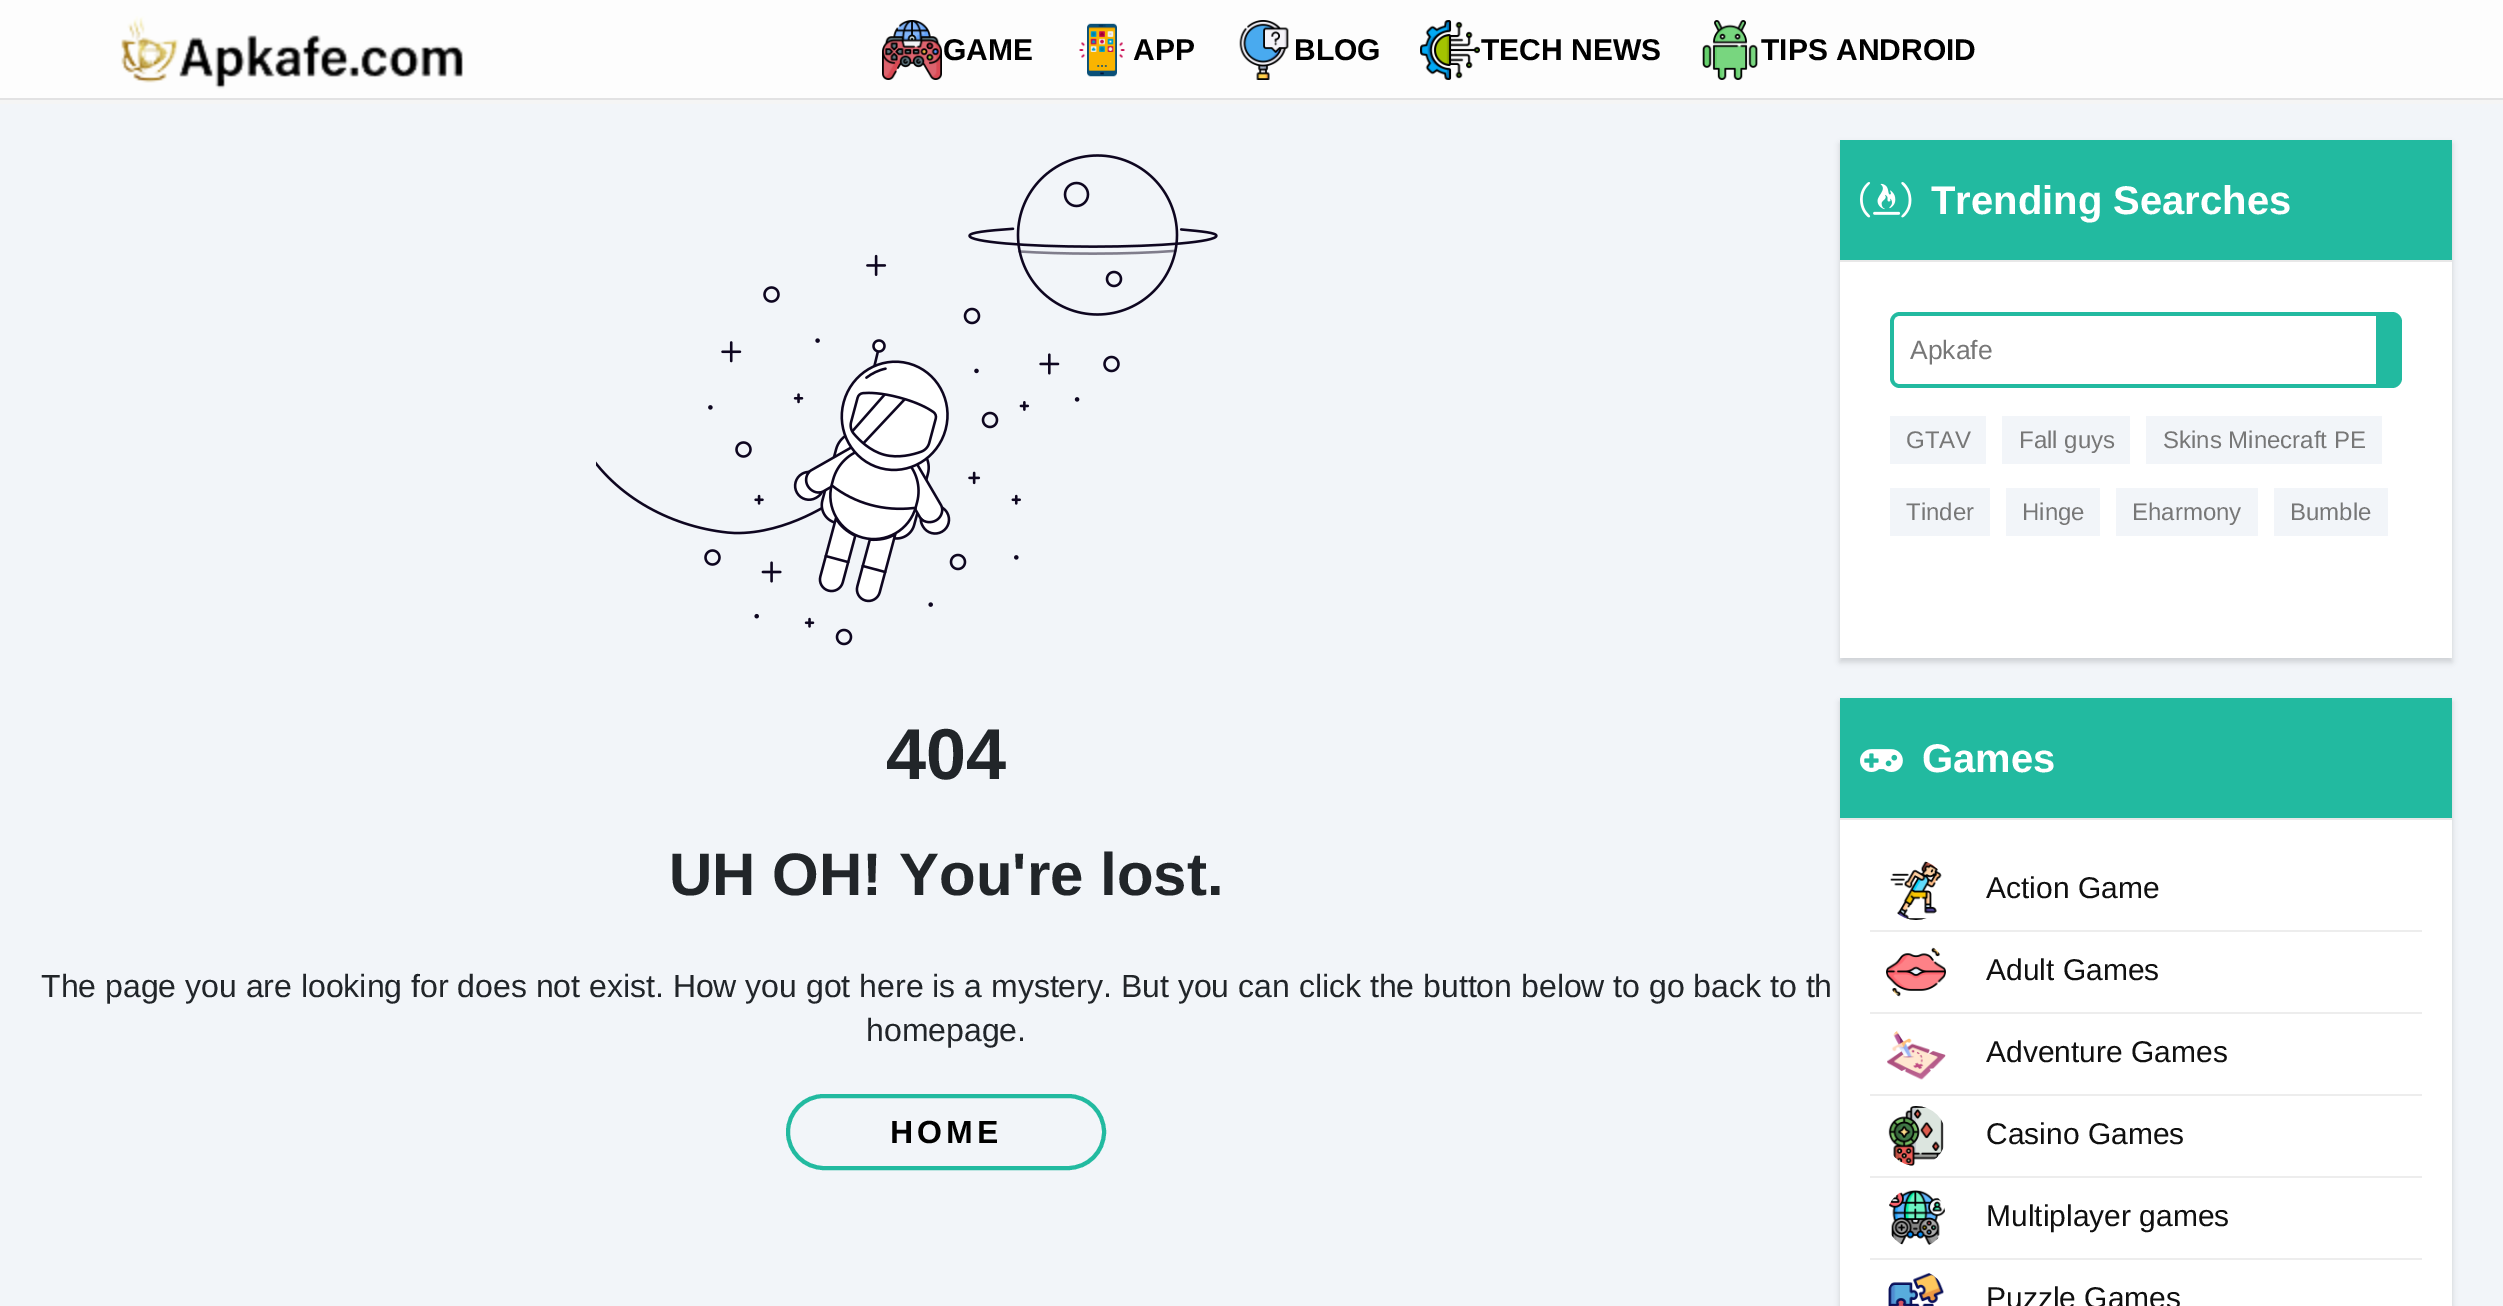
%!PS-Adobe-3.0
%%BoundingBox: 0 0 2503 1306
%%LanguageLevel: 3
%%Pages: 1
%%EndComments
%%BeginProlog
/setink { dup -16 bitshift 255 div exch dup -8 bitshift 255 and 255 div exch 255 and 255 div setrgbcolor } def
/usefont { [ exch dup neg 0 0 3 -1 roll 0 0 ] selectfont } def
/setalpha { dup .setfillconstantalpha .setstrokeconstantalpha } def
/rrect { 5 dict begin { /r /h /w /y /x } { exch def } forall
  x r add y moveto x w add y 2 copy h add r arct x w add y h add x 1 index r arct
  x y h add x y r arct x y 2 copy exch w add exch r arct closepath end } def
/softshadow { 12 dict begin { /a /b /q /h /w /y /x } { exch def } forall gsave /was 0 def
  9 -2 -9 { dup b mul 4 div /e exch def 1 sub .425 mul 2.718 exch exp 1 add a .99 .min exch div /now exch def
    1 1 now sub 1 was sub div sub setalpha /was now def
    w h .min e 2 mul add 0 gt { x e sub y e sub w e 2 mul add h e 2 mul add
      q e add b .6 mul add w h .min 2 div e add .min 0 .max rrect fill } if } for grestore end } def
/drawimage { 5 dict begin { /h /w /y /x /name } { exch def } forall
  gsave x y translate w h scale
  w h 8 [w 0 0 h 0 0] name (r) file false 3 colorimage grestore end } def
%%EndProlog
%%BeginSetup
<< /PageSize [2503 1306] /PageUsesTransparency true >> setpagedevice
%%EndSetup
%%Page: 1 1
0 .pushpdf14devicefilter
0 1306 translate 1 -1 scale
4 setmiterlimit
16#F2F5F9 setink
0 0 2503 1306 rectfill
[
    [0 100 2503 4 16#F5F5F5]
    [0 0 2503 98 16#FDFDFD]
    [0 98 2503 2 16#E2E2E3]
] { aload pop setink rectfill } forall
(img1.raw) 121 16 342 73 drawimage
(img2.raw) 882 20 60 60 drawimage
/LiberationSans-Bold 30 usefont
16#000000 setink
943 60 moveto (GAME) show
(img3.raw) 1079 23 46 54 drawimage
1133 60 moveto (APP) show
(img4.raw) 1239 20 50 60 drawimage
1294 60 moveto (BLOG) show
(img5.raw) 1420 20 60 60 drawimage
1481 60 moveto (TECH NEWS) show
(img6.raw) 1702 20 56 60 drawimage
1761 60 moveto (TIPS ANDROID) show
(img7.raw) 596 154 622 492 drawimage
/LiberationSans-Bold 72 usefont
16#212529 setink
886 779 moveto (404) show
/LiberationSans-Bold 60 usefont
669 895 moveto (UH OH! You're lost.) show
/LiberationSans-Regular 32 usefont
41 997 moveto (The page you are looking for does not exist. How you got here is a mystery. But you can click the button below to go back to th) show
866 1041 moveto (homepage.) show
16#22BAA0 setink
4 setlinewidth
788 1096 316 72 36 rrect stroke
/LiberationSans-Bold 32 usefont
16#000000 setink
890 1143 moveto 4 0 (HOME) ashow
1840 144 612 518 0 3 0.15 softshadow
[
    [1840 262 612 396 16#FFFFFF]
    [1840 140 612 120 16#22BAA0]
    [1840 260 612 2 16#E8E8E8]
] { aload pop setink rectfill } forall
(img8.raw) 1860 182 52 36 drawimage
/LiberationSans-Bold 40 usefont
16#FFFFFF setink
1931 214 moveto (Trending Searches) show
16#22BAA0 setink
1890 312 512 76 10 rrect fill
16#FFFFFF setink
1900 316 moveto 2376 316 lineto 2376 384 lineto 1900 384 lineto 1896.5 384 1894 381.5 1894 378 curveto 1894 322 lineto 1894 318.5 1896.5 316 1900 316 curveto closepath fill
/LiberationSans-Regular 26.5 usefont
16#777777 setink
1910 359 moveto (Apkafe) show
16#F2F5F9 setink
1890 416 96 48 rectfill
/LiberationSans-Regular 24 usefont
16#777777 setink
1906 448 moveto (GTAV) show
16#F2F5F9 setink
2002 416 128 48 rectfill
16#777777 setink
2019 448 moveto (Fall guys) show
16#F2F5F9 setink
2146 416 236 48 rectfill
16#777777 setink
2163 448 moveto (Skins Minecraft PE) show
16#F2F5F9 setink
1890 488 100 48 rectfill
16#777777 setink
1906 520 moveto (Tinder) show
16#F2F5F9 setink
2006 488 94 48 rectfill
16#777777 setink
2022 520 moveto (Hinge) show
16#F2F5F9 setink
2116 488 142 48 rectfill
16#777777 setink
2132 520 moveto (Eharmony) show
16#F2F5F9 setink
2274 488 114 48 rectfill
16#777777 setink
2290 520 moveto (Bumble) show
16#000000 setink
1840 702 612 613 0 3 0.15 softshadow
[
    [1840 820 612 486 16#FFFFFF]
    [1840 698 612 120 16#22BAA0]
    [1840 818 612 2 16#E8E8E8]
] { aload pop setink rectfill } forall
(img9.raw) 1860 749 43 23 drawimage
/LiberationSans-Bold 40 usefont
16#FFFFFF setink
1922 772 moveto (Games) show
16#EDEDED setink
1870 930 552 2 rectfill
(img10.raw) 1890 861 52 59 drawimage
/LiberationSans-Regular 30 usefont
16#101010 setink
1986 898 moveto (Action Game) show
16#EDEDED setink
1870 1012 552 2 rectfill
(img11.raw) 1886 947 60 50 drawimage
16#101010 setink
1986 980 moveto (Adult Games) show
16#EDEDED setink
1870 1094 552 2 rectfill
(img12.raw) 1887 1030 59 50 drawimage
16#101010 setink
1986 1062 moveto (Adventure Games) show
16#EDEDED setink
1870 1176 552 2 rectfill
(img13.raw) 1888 1106 56 60 drawimage
16#101010 setink
1986 1144 moveto (Casino Games) show
16#EDEDED setink
1870 1258 552 2 rectfill
(img14.raw) 1889 1190 56 55 drawimage
16#101010 setink
1986 1226 moveto (Multiplayer games) show
(img15.raw) 1888 1273 56 33 drawimage
1986 1308 moveto (Puzzle Games) show
.poppdf14devicefilter showpage
%%EOF
